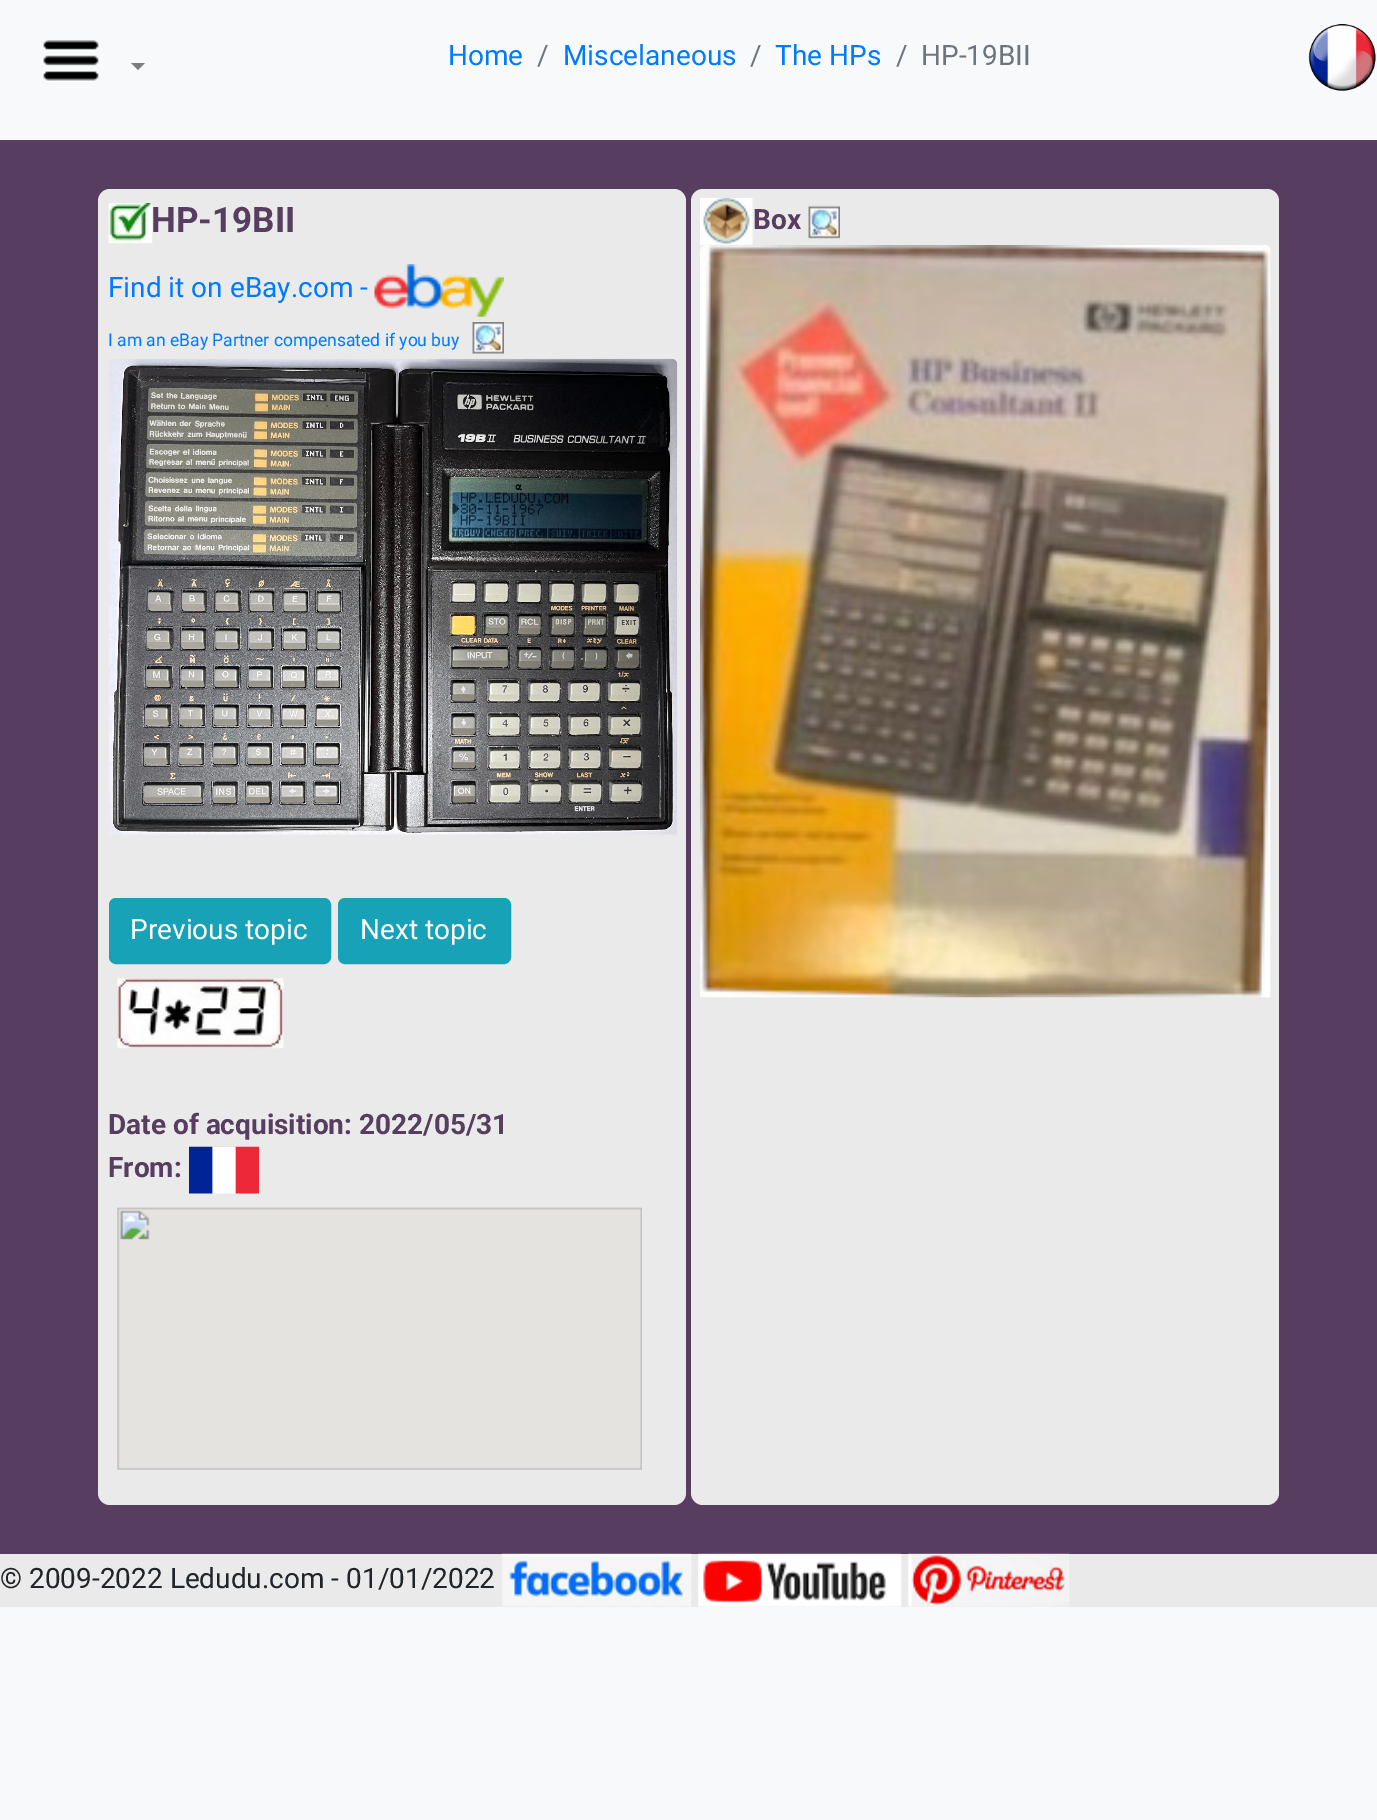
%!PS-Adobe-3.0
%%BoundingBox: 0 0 1377 1820
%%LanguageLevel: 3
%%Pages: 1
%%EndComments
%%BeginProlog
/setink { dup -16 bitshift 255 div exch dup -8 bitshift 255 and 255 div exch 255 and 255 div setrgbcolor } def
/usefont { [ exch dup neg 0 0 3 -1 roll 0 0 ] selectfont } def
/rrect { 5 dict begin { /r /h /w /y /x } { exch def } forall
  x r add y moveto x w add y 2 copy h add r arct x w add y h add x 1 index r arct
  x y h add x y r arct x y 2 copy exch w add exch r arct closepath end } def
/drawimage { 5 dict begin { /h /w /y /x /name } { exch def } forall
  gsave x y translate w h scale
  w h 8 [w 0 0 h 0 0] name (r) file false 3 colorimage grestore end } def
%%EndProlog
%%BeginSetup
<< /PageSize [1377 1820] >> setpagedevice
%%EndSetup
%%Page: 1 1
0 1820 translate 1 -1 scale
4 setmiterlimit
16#F8F9FA setink
0 0 1377 1820 rectfill
(img1.raw) 42 40 57 42 drawimage
16#7C7D7D setink
131 63 moveto 145 63 lineto 138 70 lineto closepath fill
/Roboto-Regular 28 usefont
16#007BFF setink
448 65 moveto (Home) show
16#6C757D setink
537 65 moveto (/) show
16#007BFF setink
563 65 moveto (Miscelaneous) show
16#6C757D setink
750 65 moveto (/) show
16#007BFF setink
775 65 moveto (The HPs) show
16#6C757D setink
896 65 moveto (/) show
921 65 moveto (HP-19BII) show
(img2.raw) 1308 24 68 67 drawimage
16#573D5F setink
0 140 1377 1414 rectfill
16#EAEAEA setink
98 189 588 1316 12 rrect fill
(img3.raw) 108 203 45 41 drawimage
/Roboto-Bold 35 usefont
16#573D5F setink
151 232 moveto (HP-19BII) show
/Roboto-Regular 28 usefont
16#007BFF setink
108 297 moveto (Find it on eBay.com -) show
(img4.raw) 374 264 130 53 drawimage
/Roboto-Regular 17.5 usefont
108 346 moveto (I am an eBay Partner compensated if you buy) show
(img5.raw) 472 322 32 32 drawimage
(img6.raw) 108 358 570 477 drawimage
16#17A2B8 setink
110 899 220 64 6 rrect gsave fill grestore
2 setlinewidth
stroke
/Roboto-Regular 28 usefont
16#FFFFFF setink
130 939 moveto (Previous topic) show
16#17A2B8 setink
339 899 171 64 6 rrect gsave fill grestore
stroke
16#FFFFFF setink
360 939 moveto (Next topic) show
(img7.raw) 117 978 167 71 drawimage
/Roboto-Bold 28 usefont
16#573D5F setink
108 1134 moveto (Date of acquisition: 2022/05/31) show
108 1177 moveto (From:) show
(img8.raw) 189 1146 70 48 drawimage
(img9.raw) 117 1207 525 263 drawimage
16#EAEAEA setink
691 189 588 1316 12 rrect fill
(img10.raw) 700 198 53 47 drawimage
16#573D5F setink
753 229 moveto (Box) show
(img11.raw) 808 205 32 34 drawimage
(img12.raw) 700 245 571 753 drawimage
16#EAEAEA setink
0 1554 1377 53 rectfill
/Roboto-Regular 28 usefont
16#212529 setink
0 1588 moveto (© 2009-2022 Ledudu.com - 01/01/2022) show
(img13.raw) 502 1553 190 54 drawimage
(img14.raw) 698 1553 204 54 drawimage
(img15.raw) 908 1553 162 54 drawimage
showpage
%%EOF
